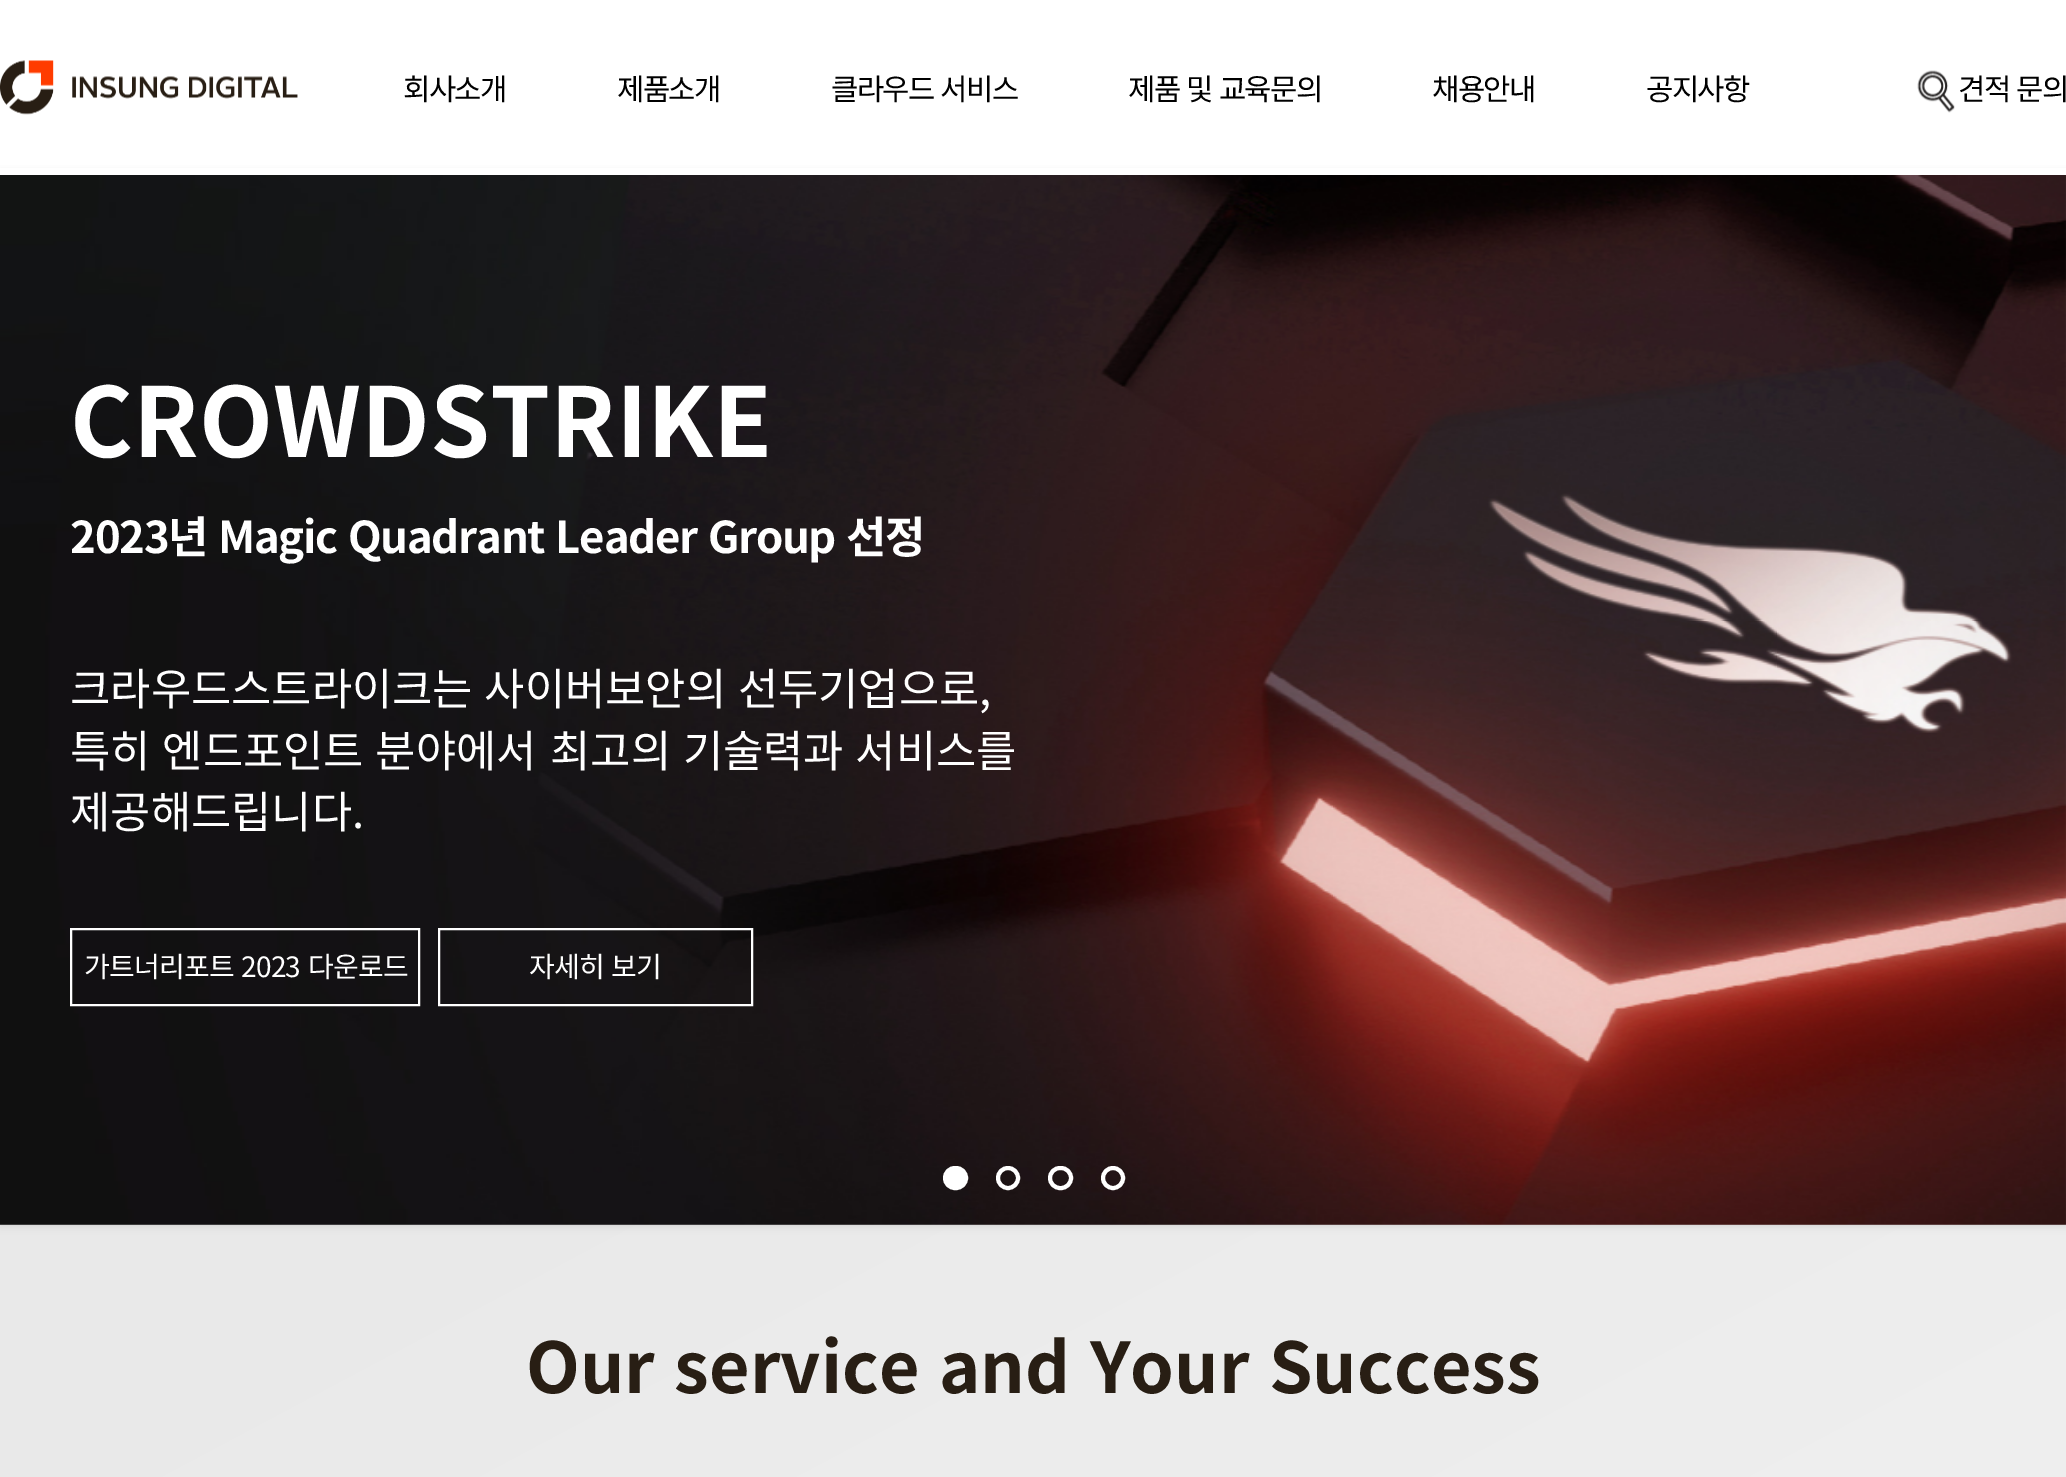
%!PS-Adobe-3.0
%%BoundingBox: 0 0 2066 1477
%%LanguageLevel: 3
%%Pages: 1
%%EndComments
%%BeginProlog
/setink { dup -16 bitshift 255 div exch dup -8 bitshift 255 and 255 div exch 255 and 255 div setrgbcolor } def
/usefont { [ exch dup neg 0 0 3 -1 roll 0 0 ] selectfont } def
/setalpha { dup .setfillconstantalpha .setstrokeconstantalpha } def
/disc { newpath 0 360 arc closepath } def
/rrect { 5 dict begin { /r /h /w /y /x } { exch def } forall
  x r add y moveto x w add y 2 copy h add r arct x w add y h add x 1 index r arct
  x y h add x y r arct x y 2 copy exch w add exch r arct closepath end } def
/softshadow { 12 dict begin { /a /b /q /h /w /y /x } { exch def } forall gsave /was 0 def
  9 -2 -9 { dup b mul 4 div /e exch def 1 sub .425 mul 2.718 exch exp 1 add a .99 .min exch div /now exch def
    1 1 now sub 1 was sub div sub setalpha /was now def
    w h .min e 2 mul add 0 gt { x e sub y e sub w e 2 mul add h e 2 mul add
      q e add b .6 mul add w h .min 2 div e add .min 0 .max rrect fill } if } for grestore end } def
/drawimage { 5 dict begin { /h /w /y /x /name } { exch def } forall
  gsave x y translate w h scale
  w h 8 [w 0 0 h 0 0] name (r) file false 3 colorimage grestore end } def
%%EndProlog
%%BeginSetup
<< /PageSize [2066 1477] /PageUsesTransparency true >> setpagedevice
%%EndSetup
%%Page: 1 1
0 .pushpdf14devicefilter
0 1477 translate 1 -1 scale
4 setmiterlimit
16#FFFFFF setink
0 0 2066 1477 rectfill
gsave 0 1225 moveto 2066 1225 lineto 2066 1477 lineto 0 1477 lineto closepath clip newpath
<< /ShadingType 2 /ColorSpace /DeviceRGB /Coords [-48 1251 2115 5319] /Extend [true true] /Function << /FunctionType 2 /Domain [0 1] /C0 [0.914 0.914 0.914] /C1 [1 1 1] /N 1 >> >> shfill grestore
16#CCCCCC setink
0 175 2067 1050 0 4.5 1 softshadow
16#FFFFFF setink
0 168 2066 7 rectfill
(img1.raw) 0 60 298 55 drawimage
/NotoSansKR-Regular 29.75 usefont
16#000000 setink
403 100 moveto -1.75 0 (회사소개) ashow
617 100 moveto -1.75 0 (제품소개) ashow
831 100 moveto 2 0 32 -1.75 0 (클라우드 서비스) awidthshow
1128 100 moveto 2 0 32 -1.75 0 (제품 및 교육문의) awidthshow
1432 100 moveto -1.75 0 (채용안내) ashow
1646 100 moveto -1.75 0 (공지사항) ashow
(img2.raw) 1917 70 38 43 drawimage
1958 100 moveto 2 0 32 -1.75 0 (견적 문의) awidthshow
(img3.raw) 0 175 2066 1050 drawimage
/NotoSansKR-Bold 96.25 usefont
16#FFFFFF setink
70 457 moveto (CROWDSTRIKE) show
/NotoSansKR-Bold 43.75 usefont
70 553 moveto 2.25 0 32 -1.3 0 (2023년 Magic Quadrant Leader Group 선정) awidthshow
/NotoSansKR-Regular 43.75 usefont
70 705 moveto 2 0 32 (크라우드스트라이크는 사이버보안의 선두기업으로,) widthshow
70 767 moveto 2 0 32 (특히 엔드포인트 분야에서) widthshow
550 767 moveto 2 0 32 (최고의 기술력과 서비스를) widthshow
70 828 moveto (제공해드립니다.) show
2 setlinewidth
71 929 348 76 rectstroke
/NotoSansKR-Regular 28 usefont
84 977 moveto 2 0 32 -0.8 0 (가트너리포트 2023 다운로드) awidthshow
439 929 313 76 rectstroke
529 977 moveto 2 0 32 -0.8 0 (자세히 보기) awidthshow
945 1168 21 20 10 rrect gsave fill grestore
4 setlinewidth
stroke
1008 1178 10 disc stroke
1050 1168 21 20 10 rrect stroke
1113 1178 10 disc stroke
/NotoSansKR-Bold 70 usefont
16#281E14 setink
526 1393 moveto 3.5 0 32 (Our service and Your Success) widthshow
.poppdf14devicefilter showpage
%%EOF
